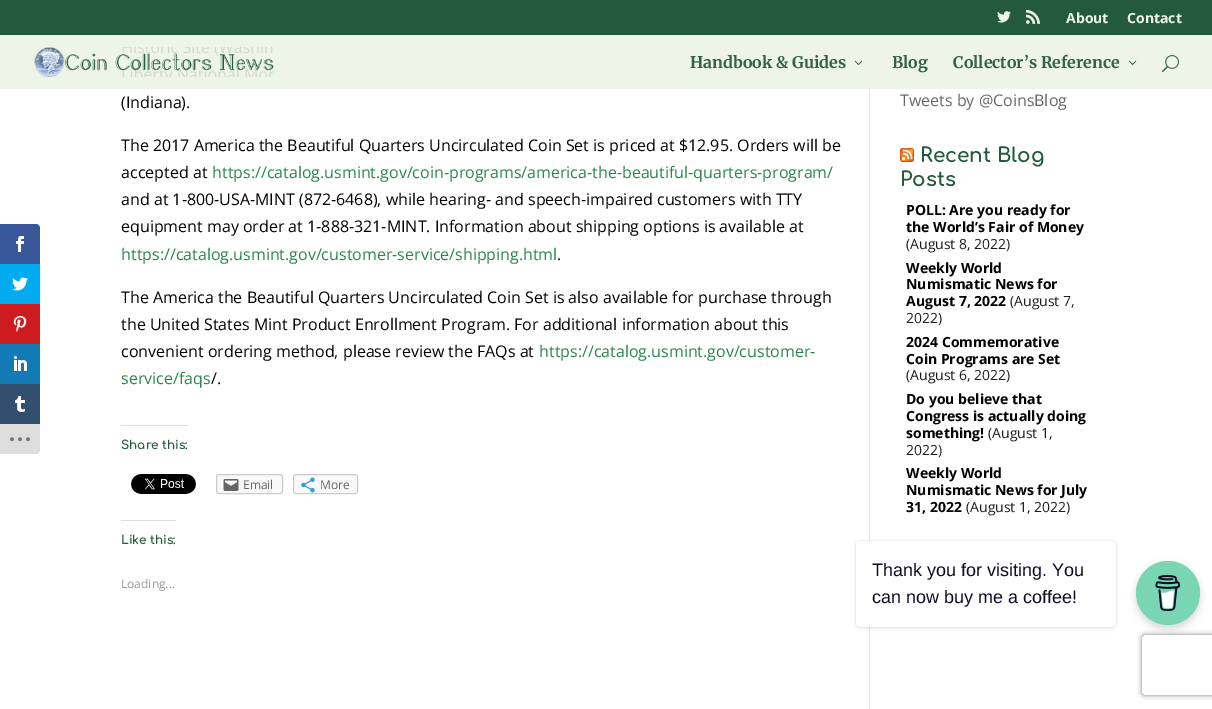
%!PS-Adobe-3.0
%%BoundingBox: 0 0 1212 709
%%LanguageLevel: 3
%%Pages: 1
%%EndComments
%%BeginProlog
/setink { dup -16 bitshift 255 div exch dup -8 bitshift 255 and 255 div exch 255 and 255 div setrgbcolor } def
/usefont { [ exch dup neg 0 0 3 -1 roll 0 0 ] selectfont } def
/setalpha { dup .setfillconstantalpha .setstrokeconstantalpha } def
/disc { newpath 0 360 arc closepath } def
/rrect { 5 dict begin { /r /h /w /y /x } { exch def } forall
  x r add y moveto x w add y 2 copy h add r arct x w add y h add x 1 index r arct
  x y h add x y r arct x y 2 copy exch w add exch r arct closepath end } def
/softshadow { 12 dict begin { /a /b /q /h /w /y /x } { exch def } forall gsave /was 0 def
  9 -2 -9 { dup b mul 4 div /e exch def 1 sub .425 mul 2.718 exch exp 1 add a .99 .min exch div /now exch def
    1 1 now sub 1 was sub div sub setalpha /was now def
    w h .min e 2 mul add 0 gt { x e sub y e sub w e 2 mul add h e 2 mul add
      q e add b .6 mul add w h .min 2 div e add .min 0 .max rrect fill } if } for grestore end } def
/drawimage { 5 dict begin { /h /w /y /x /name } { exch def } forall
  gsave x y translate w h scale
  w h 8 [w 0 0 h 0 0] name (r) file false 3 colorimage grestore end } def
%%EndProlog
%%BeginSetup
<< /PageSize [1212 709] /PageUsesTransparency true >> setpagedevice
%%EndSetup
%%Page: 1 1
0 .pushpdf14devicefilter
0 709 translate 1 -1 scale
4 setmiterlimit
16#FFFFFF setink
0 0 1212 709 rectfill
16#3A579A setink
0 224 moveto 36 224 lineto 38 224 40 226 40 228 curveto 40 264 lineto 0 264 lineto closepath fill
(img1.raw) 16 236 8 16 drawimage
16#00ABF0 setink
0 264 40 40 rectfill
(img2.raw) 12 277 16 14 drawimage
16#CD1C1F setink
0 304 40 40 rectfill
(img3.raw) 13 316 14 16 drawimage
16#127BB6 setink
0 344 40 40 rectfill
(img4.raw) 14 356 13 15 drawimage
16#32506D setink
0 384 40 40 rectfill
(img5.raw) 15 396 10 16 drawimage
16#DEDEDE setink
0 424 moveto 40 424 lineto 40 450 lineto 40 452 38 454 36 454 curveto 0 454 lineto closepath fill
(img6.raw) 10 437 20 5 drawimage
16#245A3C setink
0 0 1212 35 rectfill
(img7.raw) 997 11 14 12 drawimage
(img8.raw) 1026 9 14 15 drawimage
/OpenSans-Bold 14 usefont
16#EFF4E9 setink
1066 23 moveto (About) show
1127 23 moveto (Contact) show
16#E2E2E2 setink
869 35 1 674 rectfill
0.89 setalpha
16#EDF3E6 setink
0 35 1212 54 rectfill
1 setalpha
(img9.raw) 34 47 240 30 drawimage
/Merriweather-Bold 16 usefont
16#306346 setink
690 68 moveto (Handbook & Guides) show
(img10.raw) 854 60 9 5 drawimage
892 68 moveto (Blog) show
953 68 moveto (Collector’s Reference) show
(img10.raw) 1128 60 9 5 drawimage
(img11.raw) 1162 55 17 18 drawimage
/OpenSans-Regular 16 usefont
16#000000 setink
[
    [(\(Indiana\).) 121 108]
    [(The 2017 America the Beautiful Quarters Uncirculated Coin Set is priced at $12.95. Orders will be) 121 151]
    [(accepted at) 121 178]
] { aload pop moveto show } forall
16#29844F setink
212 178 moveto (https://catalog.usmint.gov/coin-programs/america-the-beautiful-quarters-program/) show
16#000000 setink
121 205 moveto (and at 1-800-USA-MINT \(872-6468\), while hearing- and speech-impaired customers with TTY) show
121 232 moveto (equipment may order at 1-888-321-MINT. Information about shipping options is available at) show
16#29844F setink
121 260 moveto (https://catalog.usmint.gov/customer-service/shipping.html) show
16#000000 setink
[
    [(.) 557 260]
    [(The America the Beautiful Quarters Uncirculated Coin Set is also available for purchase through) 121 303]
    [(the United States Mint Product Enrollment Program. For additional information about this) 121 330]
    [(convenient ordering method, please review the FAQs at) 121 357]
] { aload pop moveto show } forall
16#29844F setink
539 357 moveto (https://catalog.usmint.gov/customer-) show
121 384 moveto (service/faqs) show
16#000000 setink
211 384 moveto (/.) show
16#DCDCDE setink
121 425 67 1 rectfill
/Comfortaa-Bold 12 usefont
16#245A3C setink
121 449 moveto (Share this:) show
(img12.raw) 131 474 65 20 drawimage
16#F8F8F8 setink
216.5 474.5 66 19 2.5 rrect gsave fill grestore
16#CCCCCC setink
stroke
(img13.raw) 223 479 16 12 drawimage
/OpenSans-Regular 12 usefont
16#666666 setink
243 489 moveto (Email) show
16#F8F8F8 setink
293.5 474.5 64 19 2.5 rrect gsave fill grestore
16#CCCCCC setink
stroke
(img14.raw) 301 477 14 16 drawimage
16#666666 setink
320 489 moveto (More) show
16#DCDCDE setink
121 520 55 1 rectfill
/Comfortaa-Bold 12 usefont
16#245A3C setink
121 544 moveto (Like this:) show
/OpenSans-Regular 12 usefont
16#999999 setink
121 588 moveto (Loading...) show
/OpenSans-Regular 16 usefont
16#666666 setink
900 106 moveto (Tweets by @CoinsBlog) show
(img15.raw) 900 148 14 14 drawimage
/Comfortaa-Bold 20 usefont
16#245A3C setink
920 162 moveto (Recent Blog) show
900 186 moveto (Posts) show
/OpenSans-Bold 14 usefont
16#000000 setink
906 215 moveto (POLL: Are you ready for) show
906 232 moveto (the World’s Fair of Money) show
/OpenSans-Regular 14 usefont
16#1E1E1E setink
906 249 moveto (\(August 8, 2022\)) show
/OpenSans-Bold 14 usefont
16#000000 setink
[
    [(Weekly World) 906 273]
    [(Numismatic News for) 906 289]
    [(August 7, 2022) 906 306]
] { aload pop moveto show } forall
/OpenSans-Regular 14 usefont
16#1E1E1E setink
1010 306 moveto (\(August 7,) show
906 323 moveto (2022\)) show
/OpenSans-Bold 14 usefont
16#000000 setink
906 347 moveto (2024 Commemorative) show
906 364 moveto (Coin Programs are Set) show
/OpenSans-Regular 14 usefont
16#1E1E1E setink
906 380 moveto (\(August 6, 2022\)) show
/OpenSans-Bold 14 usefont
16#000000 setink
[
    [(Do you believe that) 906 404]
    [(Congress is actually doing) 906 421]
    [(something!) 906 438]
] { aload pop moveto show } forall
/OpenSans-Regular 14 usefont
16#1E1E1E setink
988 438 moveto (\(August 1,) show
906 455 moveto (2022\)) show
/OpenSans-Bold 14 usefont
16#000000 setink
[
    [(Weekly World) 906 478]
    [(Numismatic News for July) 906 495]
    [(31, 2022) 906 512]
] { aload pop moveto show } forall
/OpenSans-Regular 14 usefont
16#1E1E1E setink
966 512 moveto (\(August 1, 2022\)) show
16#000000 setink
856 541 260 86 4 1 0.15 softshadow
856 543 260 86 4 2.5 0.05 softshadow
16#FFFFFF setink
856 541 260 86 4 rrect fill
/LiberationSans-Regular 18 usefont
16#0D0C22 setink
872 576 moveto (Thank you for visiting. You) show
872 603 moveto (can now buy me a coffee!) show
16#000000 setink
1136 565 64 64 32 4 0.15 softshadow
16#79D6B5 setink
1168 593 32 disc fill
(img16.raw) 1155 575 26 36 drawimage
gsave
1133 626 moveto 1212 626 lineto 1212 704 lineto 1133 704 lineto closepath 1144 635 moveto 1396 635 lineto 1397 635 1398 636 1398 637 curveto 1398 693 lineto 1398 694 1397 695 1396 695 curveto 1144 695 lineto 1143 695 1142 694 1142 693 curveto 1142 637 lineto 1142 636 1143 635 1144 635 curveto closepath eoclip newpath
16#808080 setink
1142 635 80 60 2 2.5 1 softshadow
grestore
.poppdf14devicefilter showpage
%%EOF
